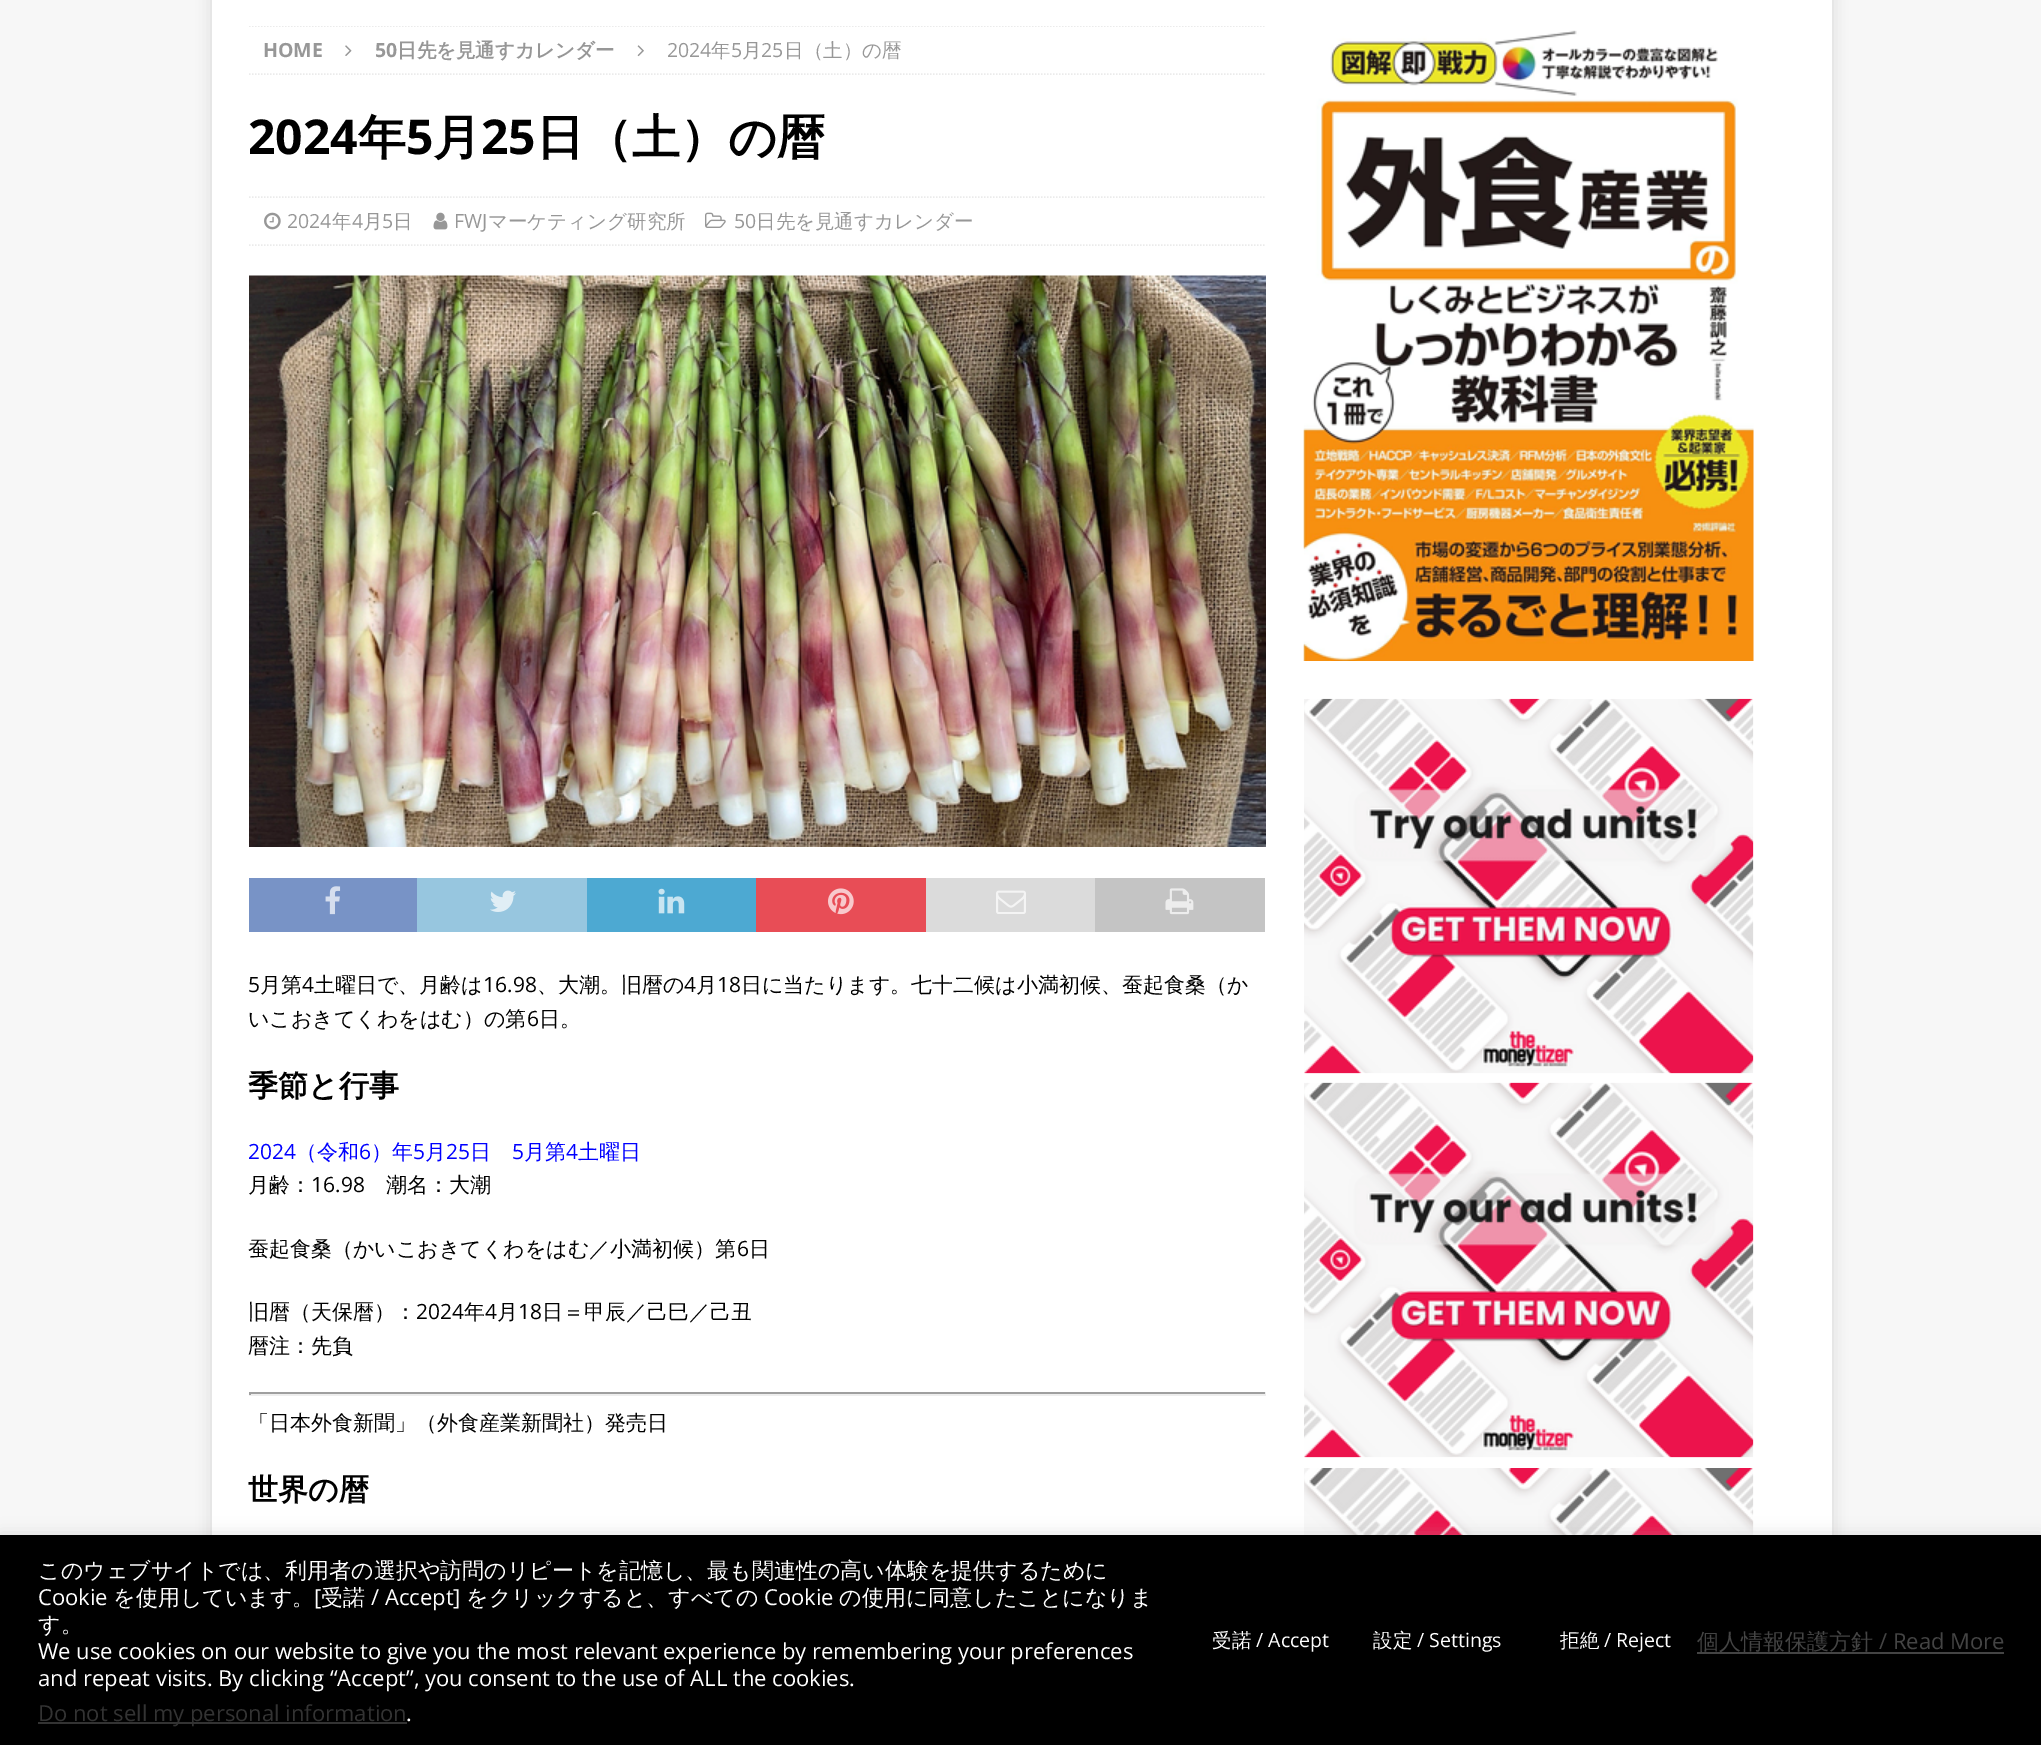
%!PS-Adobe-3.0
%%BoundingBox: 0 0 2041 1745
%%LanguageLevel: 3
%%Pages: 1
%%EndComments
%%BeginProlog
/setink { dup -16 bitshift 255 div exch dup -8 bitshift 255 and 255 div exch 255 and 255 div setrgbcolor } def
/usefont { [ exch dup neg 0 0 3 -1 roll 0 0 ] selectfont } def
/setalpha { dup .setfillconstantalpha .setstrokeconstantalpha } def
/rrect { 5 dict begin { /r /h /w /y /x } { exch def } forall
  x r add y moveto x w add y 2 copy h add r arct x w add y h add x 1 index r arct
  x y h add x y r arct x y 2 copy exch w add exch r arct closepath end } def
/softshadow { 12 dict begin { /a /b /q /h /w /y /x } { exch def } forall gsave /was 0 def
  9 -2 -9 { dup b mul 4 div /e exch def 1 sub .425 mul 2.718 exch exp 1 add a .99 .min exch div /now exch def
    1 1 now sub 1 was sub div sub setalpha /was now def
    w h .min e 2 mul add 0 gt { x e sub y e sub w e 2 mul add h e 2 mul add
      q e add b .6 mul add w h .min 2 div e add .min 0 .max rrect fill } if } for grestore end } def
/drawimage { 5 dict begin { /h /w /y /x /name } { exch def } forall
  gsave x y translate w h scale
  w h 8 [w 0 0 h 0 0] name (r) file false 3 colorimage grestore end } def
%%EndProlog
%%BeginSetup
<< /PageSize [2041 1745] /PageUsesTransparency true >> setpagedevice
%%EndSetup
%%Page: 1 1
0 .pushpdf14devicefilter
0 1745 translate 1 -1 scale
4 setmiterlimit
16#F7F7F7 setink
0 0 2041 1745 rectfill
16#323232 setink
212 -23 1620 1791 0 7.5 0.17 softshadow
16#FFFFFF setink
212 0 1620 1535 rectfill
gsave
249 26 1017 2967 rectclip
16#EBEBEB setink
1.5 setlinewidth
[1.5 1.5] 0 setdash
249 26 moveto 1266 26 lineto stroke
grestore
16#EBEBEB setink
1.5 setlinewidth
[1.5 1.5] 0 setdash
249 74 moveto 1266 74 lineto stroke
/OpenSans-Bold 19.5 usefont
16#979797 setink
263 57 moveto (HOME) show
(img1.raw) 345 45 7 11 drawimage
375 57 moveto (50) show
/WenQuanYiZenHei-Bold 19.5 usefont
397 57 moveto (日先を見通すカレンダー) show
(img2.raw) 637 45 7 12 drawimage
/OpenSans-Regular 19.5 usefont
667 57 moveto (2024) show
/WenQuanYiZenHei-Medium 19.5 usefont
711 57 moveto (年) show
/OpenSans-Regular 19.5 usefont
731 57 moveto (5) show
/WenQuanYiZenHei-Medium 19.5 usefont
742 57 moveto (月) show
/OpenSans-Regular 19.5 usefont
761 57 moveto (25) show
/WenQuanYiZenHei-Medium 19.5 usefont
784 57 moveto (日（土）の暦) show
/OpenSans-Bold 48 usefont
16#000000 setink
248 154 moveto (2024) show
/WenQuanYiZenHei-Bold 48 usefont
358 154 moveto (年) show
/OpenSans-Bold 48 usefont
406 154 moveto (5) show
/WenQuanYiZenHei-Bold 48 usefont
433 154 moveto (月) show
/OpenSans-Bold 48 usefont
481 154 moveto (25) show
/WenQuanYiZenHei-Bold 48 usefont
536 154 moveto (日（土）の暦) show
16#EBEBEB setink
249 197 moveto 1266 197 lineto stroke
249 245 moveto 1266 245 lineto stroke
(img3.raw) 264 212 17 18 drawimage
/OpenSans-Regular 19.5 usefont
16#979797 setink
287 228 moveto (2024) show
/WenQuanYiZenHei-Medium 19.5 usefont
332 228 moveto (年) show
/OpenSans-Regular 19.5 usefont
352 228 moveto (4) show
/WenQuanYiZenHei-Medium 19.5 usefont
363 228 moveto (月) show
/OpenSans-Regular 19.5 usefont
382 228 moveto (5) show
/WenQuanYiZenHei-Medium 19.5 usefont
393 228 moveto (日) show
(img4.raw) 433 212 15 18 drawimage
/OpenSans-Regular 19.5 usefont
454 228 moveto (FWJ) show
/WenQuanYiZenHei-Medium 19.5 usefont
488 228 moveto (マーケティング研究所) show
(img5.raw) 705 212 21 16 drawimage
/OpenSans-Regular 19.5 usefont
734 228 moveto (50) show
/WenQuanYiZenHei-Medium 19.5 usefont
756 228 moveto (日先を見通すカレンダー) show
(img6.raw) 249 275 1017 572 drawimage
16#7893C6 setink
249 878 168 54 rectfill
(img7.raw) 325 886 16 29 drawimage
16#97C6DF setink
417 878 170 54 rectfill
(img8.raw) 490 890 26 22 drawimage
16#4DA9D2 setink
587 878 169 54 rectfill
(img9.raw) 658 888 27 26 drawimage
16#E84D56 setink
756 878 170 54 rectfill
(img10.raw) 828 888 26 27 drawimage
16#DBDBDB setink
926 878 169 54 rectfill
(img11.raw) 996 890 30 24 drawimage
16#C4C4C4 setink
1095 878 170 54 rectfill
(img12.raw) 1165 888 29 27 drawimage
/OpenSans-Regular 21 usefont
16#000000 setink
248 992 moveto (5) show
/WenQuanYiZenHei-Medium 21 usefont
260 992 moveto (月第) show
/OpenSans-Regular 21 usefont
302 992 moveto (4) show
/WenQuanYiZenHei-Medium 21 usefont
314 992 moveto (土曜日で、月齢は) show
/OpenSans-Regular 21 usefont
483 992 moveto (16.98) show
/WenQuanYiZenHei-Medium 21 usefont
537 992 moveto (、大潮。旧暦の) show
/OpenSans-Regular 21 usefont
684 992 moveto (4) show
/WenQuanYiZenHei-Medium 21 usefont
696 992 moveto (月) show
/OpenSans-Regular 21 usefont
717 992 moveto (18) show
/WenQuanYiZenHei-Medium 21 usefont
741 992 moveto (日に当たります。七十二候は小満初候、蚕起食桑（か) show
248 1026 moveto (いこおきてくわをはむ）の第) show
/OpenSans-Regular 21 usefont
527 1026 moveto (6) show
/WenQuanYiZenHei-Medium 21 usefont
539 1026 moveto (日。) show
/WenQuanYiZenHei-Bold 30 usefont
248 1096 moveto (季節と行事) show
/OpenSans-Regular 21 usefont
16#0000FF setink
248 1159 moveto (2024) show
/WenQuanYiZenHei-Medium 21 usefont
296 1159 moveto (（令和) show
/OpenSans-Regular 21 usefont
359 1159 moveto (6) show
/WenQuanYiZenHei-Medium 21 usefont
371 1159 moveto (）年) show
/OpenSans-Regular 21 usefont
413 1159 moveto (5) show
/WenQuanYiZenHei-Medium 21 usefont
425 1159 moveto (月) show
/OpenSans-Regular 21 usefont
446 1159 moveto (25) show
/WenQuanYiZenHei-Medium 21 usefont
470 1159 moveto (日) show
/OpenSans-Regular 21 usefont
512 1159 moveto (5) show
/WenQuanYiZenHei-Medium 21 usefont
524 1159 moveto (月第) show
/OpenSans-Regular 21 usefont
566 1159 moveto (4) show
/WenQuanYiZenHei-Medium 21 usefont
578 1159 moveto (土曜日) show
16#000000 setink
248 1192 moveto (月齢：) show
/OpenSans-Regular 21 usefont
311 1192 moveto (16.98) show
/WenQuanYiZenHei-Medium 21 usefont
386 1192 moveto (潮名：大潮) show
248 1256 moveto (蚕起食桑（かいこおきてくわをはむ／小満初候）第) show
/OpenSans-Regular 21 usefont
737 1256 moveto (6) show
/WenQuanYiZenHei-Medium 21 usefont
749 1256 moveto (日) show
248 1319 moveto (旧暦（天保暦）：) show
/OpenSans-Regular 21 usefont
416 1319 moveto (2024) show
/WenQuanYiZenHei-Medium 21 usefont
464 1319 moveto (年) show
/OpenSans-Regular 21 usefont
485 1319 moveto (4) show
/WenQuanYiZenHei-Medium 21 usefont
497 1319 moveto (月) show
/OpenSans-Regular 21 usefont
518 1319 moveto (18) show
/WenQuanYiZenHei-Medium 21 usefont
542 1319 moveto (日＝甲辰／己巳／己丑) show
248 1353 moveto (暦注：先負) show
[
    [249 1392 1017 2 16#9F9F9F]
    [1265 1392 1 3 16#EEEEEE]
    [249 1394 1017 2 16#EEEEEE]
    [249 1392 2 3 16#9F9F9F]
] { aload pop setink rectfill } forall
16#000000 setink
248 1430 moveto (「日本外食新聞」（外食産業新聞社）発売日) show
/WenQuanYiZenHei-Bold 30 usefont
248 1500 moveto (世界の暦) show
(img13.raw) 1303 30 451 631 drawimage
(img14.raw) 1304 698 450 376 drawimage
(img15.raw) 1304 1082 450 376 drawimage
(img16.raw) 1304 1468 450 67 drawimage
16#ACABAB setink
0 1533 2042 212 0 7.5 0.3 softshadow
16#000000 setink
0 1535 2041 210 rectfill
/WenQuanYiZenHei-Medium 22 usefont
16#FFFFFF setink
38 1578 moveto (このウェブサイトでは、利用者の選択や訪問のリピートを記憶し、最も関連性の高い体験を提供するために) show
/OpenSans-Regular 22 usefont
38 1605 moveto (Cookie) show
/WenQuanYiZenHei-Medium 22 usefont
113 1605 moveto (を使用しています。) show
/OpenSans-Regular 22 usefont
314 1605 moveto ([) show
/WenQuanYiZenHei-Medium 22 usefont
321 1605 moveto (受諾) show
/OpenSans-Regular 22 usefont
371 1605 moveto (/ Accept]) show
/WenQuanYiZenHei-Medium 22 usefont
466 1605 moveto (をクリックすると、すべての) show
/OpenSans-Regular 22 usefont
764 1605 moveto (Cookie) show
/WenQuanYiZenHei-Medium 22 usefont
839 1605 moveto (の使用に同意したことになりま) show
38 1632 moveto (す。) show
/OpenSans-Regular 22 usefont
38 1659 moveto (We use cookies on our website to give you the most relevant experience by remembering your preferences) show
38 1686 moveto (and repeat visits. By clicking “Accept”, you consent to the use of ALL the cookies.) show
16#333333 setink
38 1722 369 2 rectfill
38 1721 moveto (Do not sell my personal information) show
16#FFFFFF setink
406 1721 moveto (.) show
/WenQuanYiZenHei-Medium 19.5 usefont
1212 1647 moveto (受諾) show
/OpenSans-Regular 19.5 usefont
1256 1647 moveto (/ Accept) show
/WenQuanYiZenHei-Medium 19.5 usefont
1373 1647 moveto (設定) show
/OpenSans-Regular 19.5 usefont
1417 1647 moveto (/ Settings) show
/WenQuanYiZenHei-Medium 19.5 usefont
1560 1647 moveto (拒絶) show
/OpenSans-Regular 19.5 usefont
1604 1647 moveto (/ Reject) show
16#444444 setink
1697 1652 307 2 rectfill
/WenQuanYiZenHei-Medium 22 usefont
1697 1649 moveto (個人情報保護方針) show
/OpenSans-Regular 22 usefont
1879 1649 moveto (/ Read More) show
.poppdf14devicefilter showpage
%%EOF
